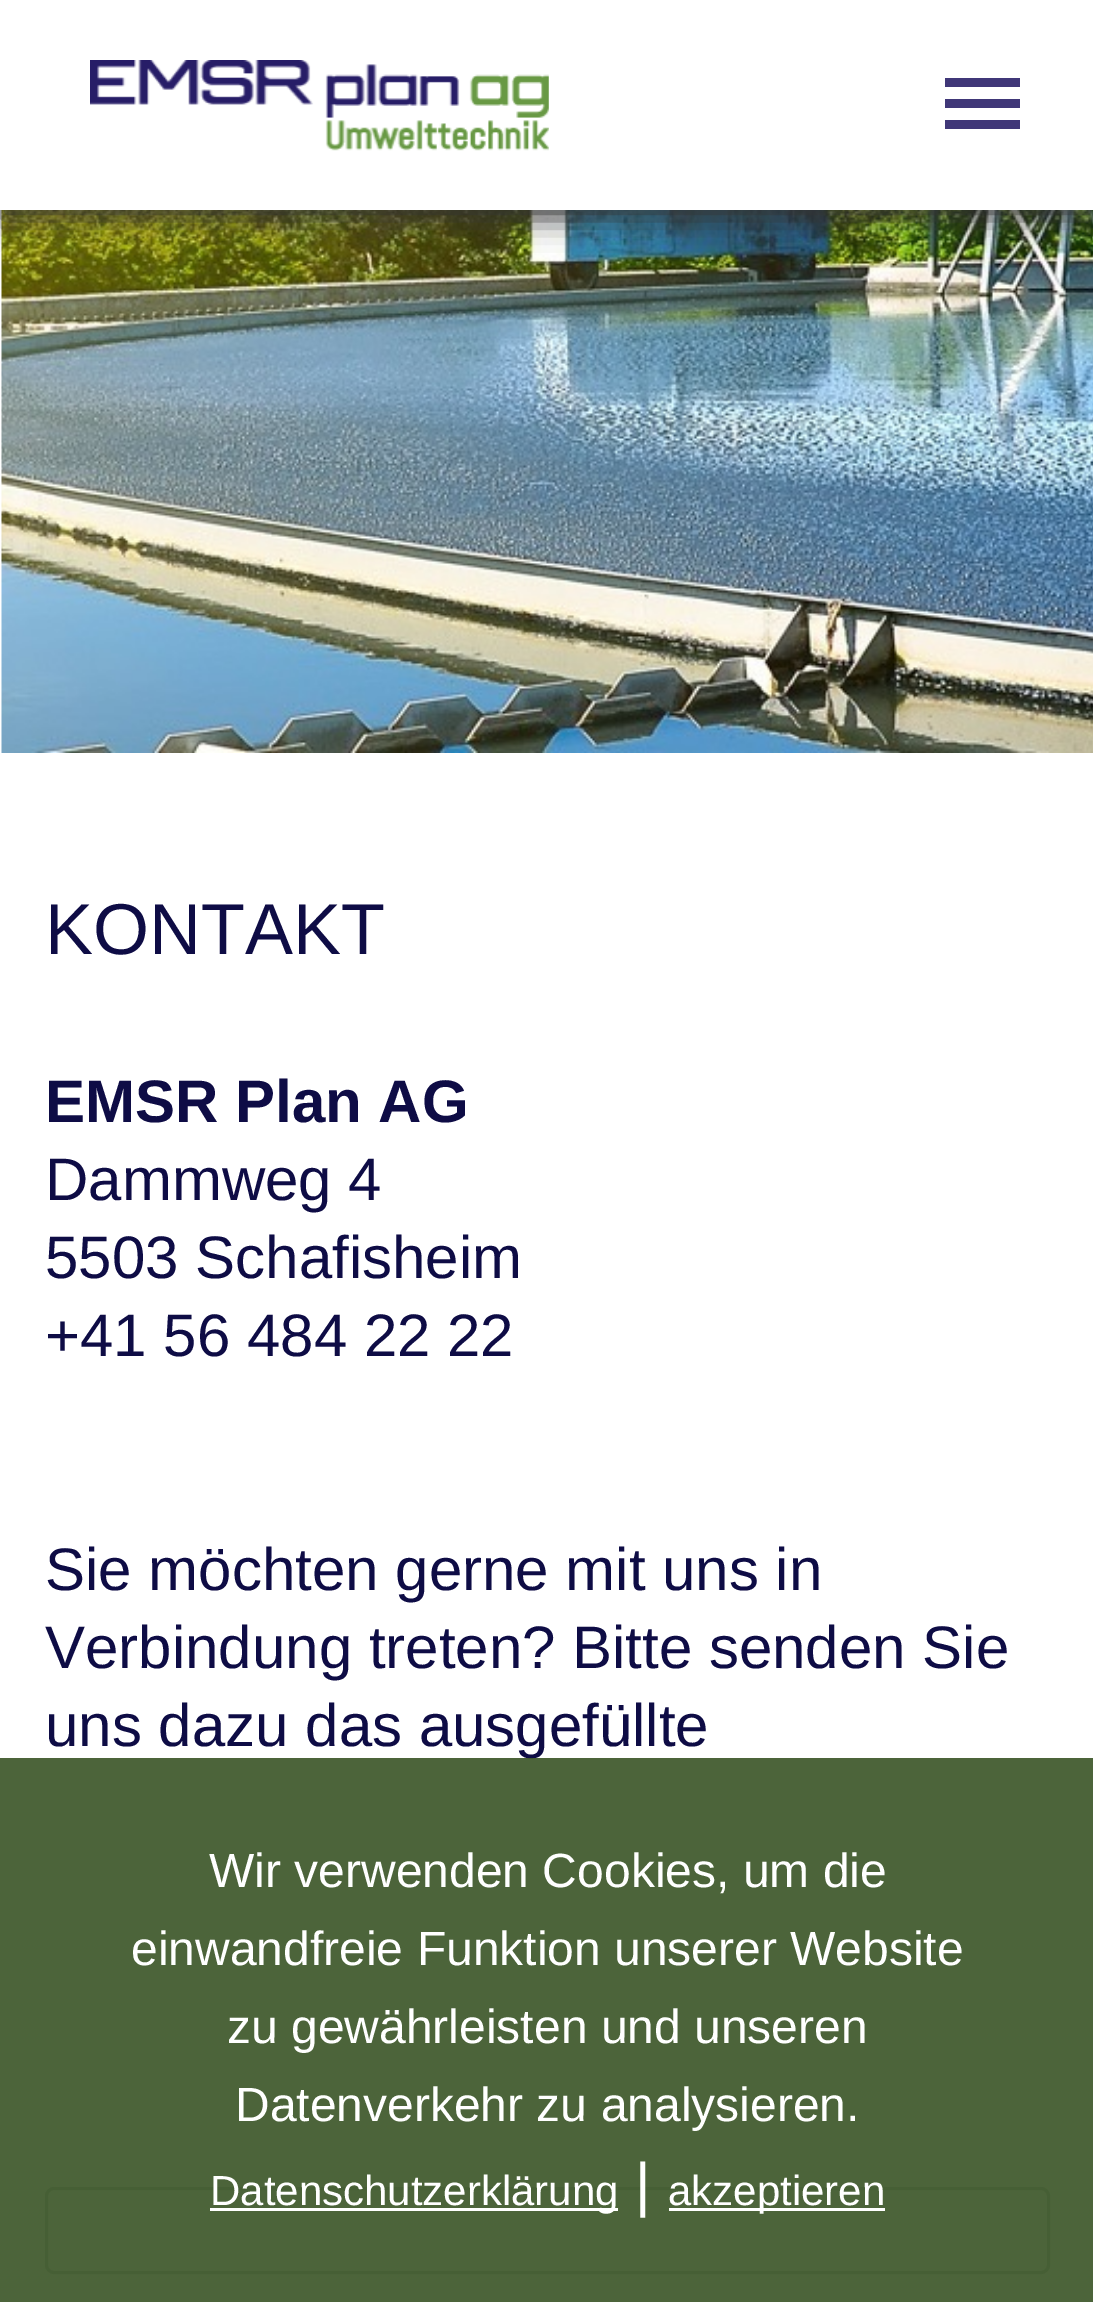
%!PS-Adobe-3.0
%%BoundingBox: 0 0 1093 2302
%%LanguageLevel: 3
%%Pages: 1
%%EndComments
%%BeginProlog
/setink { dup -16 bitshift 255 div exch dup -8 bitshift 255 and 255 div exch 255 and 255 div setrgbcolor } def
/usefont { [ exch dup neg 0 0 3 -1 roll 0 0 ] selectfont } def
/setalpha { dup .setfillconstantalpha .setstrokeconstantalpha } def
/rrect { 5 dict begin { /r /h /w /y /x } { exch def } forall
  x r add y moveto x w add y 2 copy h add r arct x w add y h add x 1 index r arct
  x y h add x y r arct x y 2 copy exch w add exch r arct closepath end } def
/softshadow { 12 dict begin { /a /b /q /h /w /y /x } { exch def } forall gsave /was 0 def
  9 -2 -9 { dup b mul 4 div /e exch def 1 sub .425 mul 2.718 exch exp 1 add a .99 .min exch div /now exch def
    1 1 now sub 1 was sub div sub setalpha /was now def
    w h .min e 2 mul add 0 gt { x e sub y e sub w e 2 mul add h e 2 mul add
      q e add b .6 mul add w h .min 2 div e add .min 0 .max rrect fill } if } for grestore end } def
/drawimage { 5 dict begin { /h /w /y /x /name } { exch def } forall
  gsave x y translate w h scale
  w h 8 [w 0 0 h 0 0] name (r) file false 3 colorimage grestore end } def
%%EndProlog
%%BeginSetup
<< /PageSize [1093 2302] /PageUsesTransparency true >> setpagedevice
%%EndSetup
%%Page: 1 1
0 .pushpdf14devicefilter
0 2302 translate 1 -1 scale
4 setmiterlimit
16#FFFFFF setink
0 0 1093 2302 rectfill
(img2.raw) 1 210 1092 543 drawimage
16#333333 setink
0 9 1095 210 0 15 1 softshadow
16#FFFFFF setink
0 0 1093 210 rectfill
(img1.raw) 90 60 459 91 drawimage
[
    [945 78 75 9 16#403778]
    [945 99 75 9 16#403778]
    [945 120 75 9 16#403778]
] { aload pop setink rectfill } forall
/LiberationSans-Regular 72 usefont
16#0E0C45 setink
45 954 moveto (KONTAKT) show
/LiberationSans-Bold 60 usefont
45 1122 moveto (EMSR Plan AG) show
/LiberationSans-Regular 60 usefont
[
    [(Dammweg 4) 45 1200]
    [(5503 Schafisheim) 45 1278]
    [(+41 56 484 22 22) 45 1356]
    [(Sie möchten gerne mit uns in) 45 1590]
    [(Verbindung treten? Bitte senden Sie) 45 1668]
    [(uns dazu das ausgefüllte) 45 1746]
] { aload pop moveto show } forall
16#CCCCCC setink
3 setlinewidth
46.5 2188.5 1002 84 7.5 rrect stroke
0.89 setalpha
16#365122 setink
0 1758 1093 544 rectfill
/LiberationSans-Regular 48 usefont
1 setalpha
16#FFFFFF setink
[
    [(Wir verwenden Cookies, um die) 209 1887]
    [(einwandfreie Funktion unserer Website) 131 1965]
    [(zu gewährleisten und unseren) 227 2043]
    [(Datenverkehr zu analysieren.) 235 2121]
] { aload pop moveto show } forall
210 2208 408 3 rectfill
/LiberationSans-Regular 42 usefont
210 2205 moveto (Datenschutzerklärung) show
/LiberationSans-Regular 60 usefont
635 2205 moveto (|) show
669 2208 216 3 rectfill
/LiberationSans-Regular 42 usefont
668 2205 moveto (akzeptieren) show
.poppdf14devicefilter showpage
%%EOF
